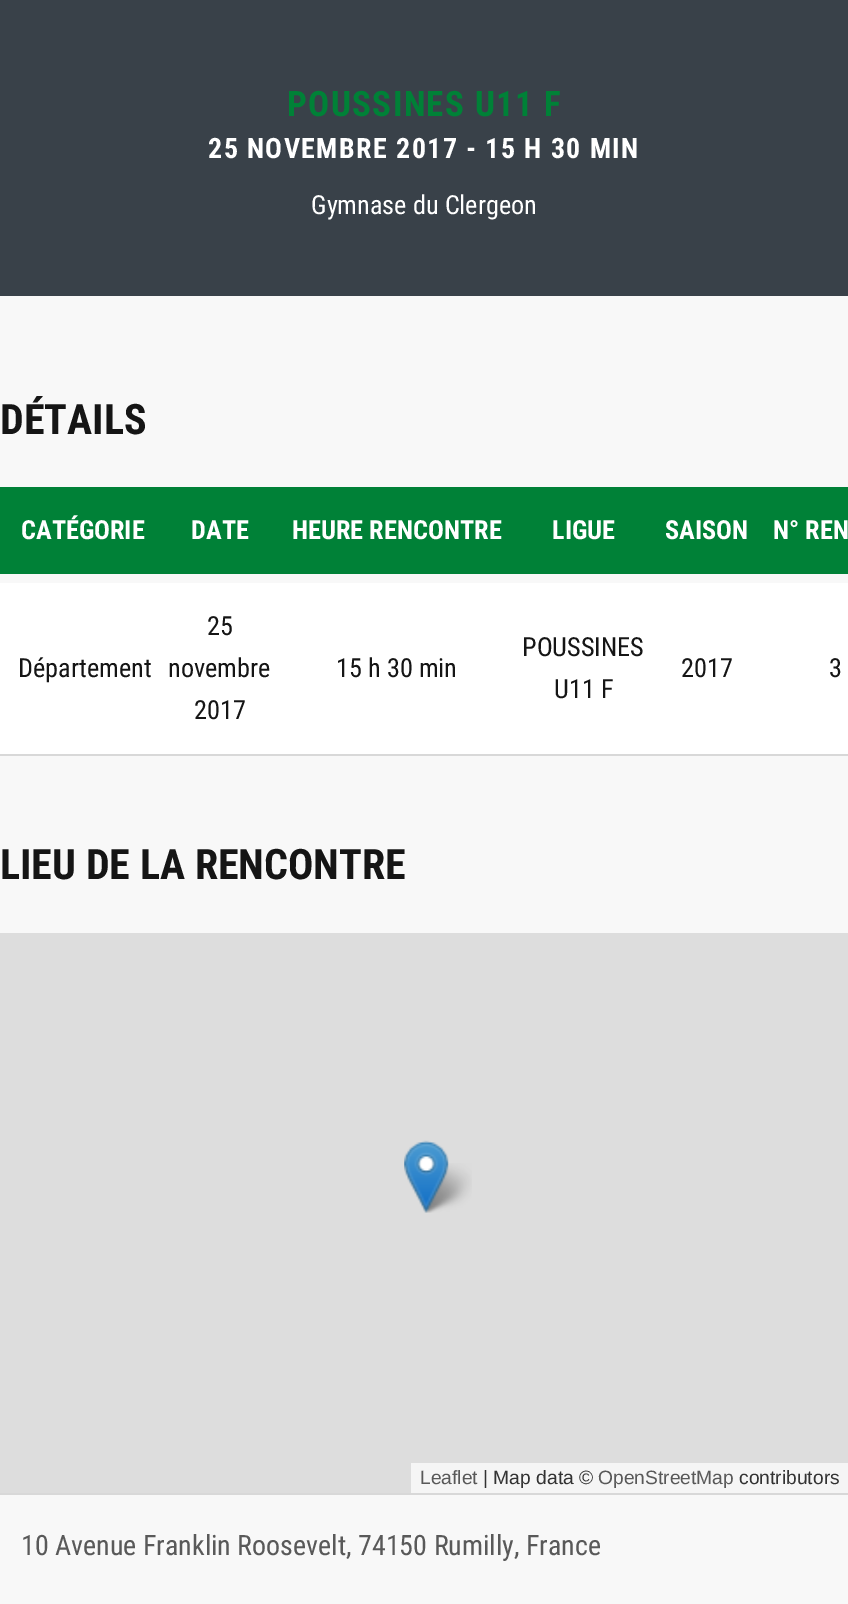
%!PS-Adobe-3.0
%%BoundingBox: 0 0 848 1604
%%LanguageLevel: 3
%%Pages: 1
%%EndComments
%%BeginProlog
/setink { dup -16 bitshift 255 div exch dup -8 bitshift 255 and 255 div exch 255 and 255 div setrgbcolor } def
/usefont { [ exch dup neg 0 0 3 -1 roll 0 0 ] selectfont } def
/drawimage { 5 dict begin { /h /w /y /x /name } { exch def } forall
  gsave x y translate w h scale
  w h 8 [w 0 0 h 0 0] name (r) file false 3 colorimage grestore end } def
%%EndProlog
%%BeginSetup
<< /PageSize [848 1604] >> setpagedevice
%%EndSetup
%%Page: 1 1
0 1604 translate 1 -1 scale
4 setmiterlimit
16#F8F8F8 setink
0 0 848 1604 rectfill
16#394149 setink
0 0 848 296 rectfill
/RobotoCondensed-Bold 35 usefont
16#008137 setink
287 116 moveto 1.4 0 (POUSSINES U11 F) ashow
/RobotoCondensed-Bold 28 usefont
16#FFFFFF setink
208 158 moveto 1.4 0 (25 NOVEMBRE 2017 - 15 H 30 MIN) ashow
/RobotoCondensed-Regular 26.25 usefont
311 214 moveto (Gymnase du Clergeon) show
/RobotoCondensed-Bold 42 usefont
16#151515 setink
0 434 moveto (DÉTAILS) show
16#008137 setink
0 487 848 87 rectfill
/RobotoCondensed-Bold 26.25 usefont
16#FFFFFF setink
[
    [(CATÉGORIE) 21 539]
    [(DATE) 191 539]
    [(HEURE RENCONTRE) 292 539]
    [(LIGUE) 552 539]
    [(SAISON) 665 539]
    [(N° REN) 773 539]
] { aload pop moveto show } forall
0 583 848 171 rectfill
16#D8D8D8 setink
0 754 848 2 rectfill
/RobotoCondensed-Regular 26.25 usefont
16#151515 setink
[
    [(Département) 18 677]
    [(25) 207 635]
    [(novembre) 168 677]
    [(2017) 194 719]
    [(15 h 30 min) 336 677]
    [(POUSSINES) 522 656]
    [(U11 F) 554 698]
    [(2017) 681 677]
    [(3) 829 677]
] { aload pop moveto show } forall
/RobotoCondensed-Bold 42 usefont
0 879 moveto (LIEU DE LA RENCONTRE) show
16#D8D8D8 setink
0 1493 848 2 rectfill
16#DDDDDD setink
0 933 848 560 rectfill
(img2.raw) 420 1163 52 50 drawimage
(img1.raw) 404 1140 45 73 drawimage
16#F5F5F5 setink
411 1463 437 30 rectfill
/LiberationSans-Regular 19.25 usefont
16#595959 setink
420 1484 moveto (Leaflet) show
16#333333 setink
483 1484 moveto (| Map data ©) show
16#595959 setink
598 1484 moveto (OpenStreetMap) show
16#333333 setink
739 1484 moveto (contributors) show
/RobotoCondensed-Regular 28 usefont
16#595959 setink
21 1555 moveto (10 Avenue Franklin Roosevelt, 74150 Rumilly, France) show
showpage
%%EOF
